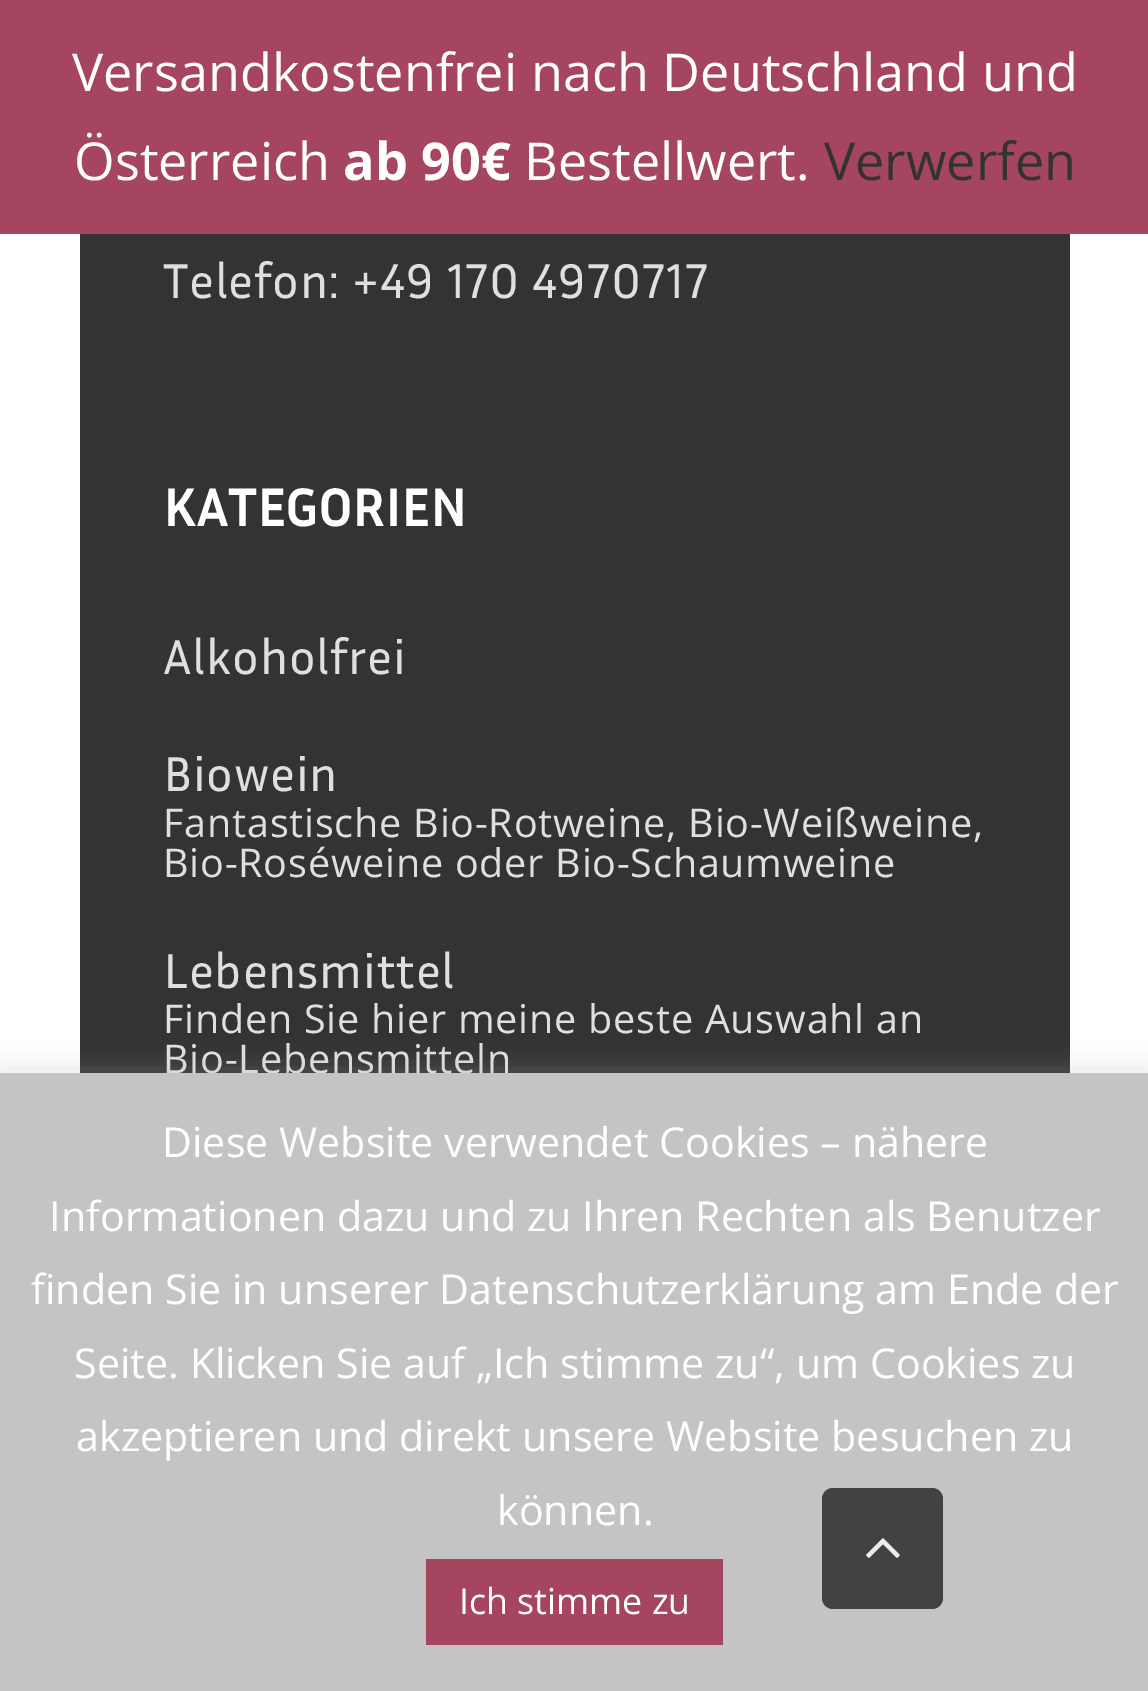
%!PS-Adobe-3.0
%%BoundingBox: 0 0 1148 1691
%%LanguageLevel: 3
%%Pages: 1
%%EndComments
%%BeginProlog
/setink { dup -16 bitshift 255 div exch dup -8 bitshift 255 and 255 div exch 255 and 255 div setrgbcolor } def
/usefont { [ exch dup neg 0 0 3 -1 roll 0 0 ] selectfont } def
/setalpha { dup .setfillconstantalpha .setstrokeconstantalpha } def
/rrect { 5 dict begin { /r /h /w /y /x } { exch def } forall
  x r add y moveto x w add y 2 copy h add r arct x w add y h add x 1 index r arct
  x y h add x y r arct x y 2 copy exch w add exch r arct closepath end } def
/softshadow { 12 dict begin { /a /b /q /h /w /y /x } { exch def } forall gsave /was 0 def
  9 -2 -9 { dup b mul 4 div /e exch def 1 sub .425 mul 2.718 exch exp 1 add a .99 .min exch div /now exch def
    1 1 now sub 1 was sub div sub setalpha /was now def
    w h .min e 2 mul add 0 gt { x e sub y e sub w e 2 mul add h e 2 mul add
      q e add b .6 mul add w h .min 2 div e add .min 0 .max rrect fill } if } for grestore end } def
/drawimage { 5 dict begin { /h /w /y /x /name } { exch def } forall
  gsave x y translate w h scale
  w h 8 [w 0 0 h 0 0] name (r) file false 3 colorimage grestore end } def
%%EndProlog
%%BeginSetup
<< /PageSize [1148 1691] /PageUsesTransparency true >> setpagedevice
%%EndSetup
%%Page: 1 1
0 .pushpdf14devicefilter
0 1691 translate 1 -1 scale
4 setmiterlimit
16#FFFFFF setink
0 0 1148 1691 rectfill
16#A54560 setink
0 0 1148 234 rectfill
/OpenSans-Regular 52.25 usefont
16#FFFFFF setink
72 91 moveto (Versandkostenfrei nach Deutschland und) show
74 180 moveto (Österreich) show
/OpenSans-Bold 52.25 usefont
343 180 moveto (ab 90€) show
/OpenSans-Regular 52.25 usefont
524 180 moveto (Bestellwert.) show
16#333333 setink
824 180 moveto (Verwerfen) show
80 234 990 839 rectfill
/InriaSans-Regular 49.5 usefont
16#E0DEDE setink
163 298 moveto 0.75 0 (Telefon: +49 170 4970717) ashow
/InriaSans-Bold 55 usefont
16#FFFFFF setink
163 526 moveto -0.75 0 (KATEGORIEN) ashow
/InriaSans-Regular 49.5 usefont
16#E0DEDE setink
163 674 moveto 0.75 0 (Alkoholfrei) ashow
163 791 moveto 0.75 0 (Biowein) ashow
/OpenSans-Regular 39.6 usefont
163 837 moveto 0.75 0 (Fantastische Bio-Rotweine, Bio-Weißweine,) ashow
163 877 moveto 0.75 0 (Bio-Roséweine oder Bio-Schaumweine) ashow
/InriaSans-Regular 49.5 usefont
163 988 moveto 0.75 0 (Lebensmittel) ashow
/OpenSans-Regular 39.6 usefont
163 1033 moveto 0.75 0 (Finden Sie hier meine beste Auswahl an) ashow
163 1073 moveto 0.75 0 (Bio-Lebensmitteln) ashow
16#ACABAB setink
0 1070 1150 619 0 14 0.3 softshadow
16#C4C4C4 setink
0 1073 1148 618 rectfill
/OpenSans-Regular 41.25 usefont
16#FFFFFF setink
[
    [(Diese Website verwendet Cookies – nähere) 162 1157]
    [(Informationen dazu und zu Ihren Rechten als Benutzer) 49 1231]
    [(finden Sie in unserer Datenschutzerklärung am Ende der) 31 1304]
    [(Seite. Klicken Sie auf „Ich stimme zu“, um Cookies zu) 74 1378]
    [(akzeptieren und direkt unsere Website besuchen zu) 76 1451]
    [(können.) 497 1525]
] { aload pop moveto show } forall
16#A54560 setink
426 1559 297 86 rectfill
/OpenSans-Regular 35.75 usefont
16#FFFFFF setink
459 1614 moveto (Ich stimme zu) show
16#424242 setink
822 1488 121 121 11 rrect fill
(img1.raw) 866 1538 34 20 drawimage
.poppdf14devicefilter showpage
%%EOF
